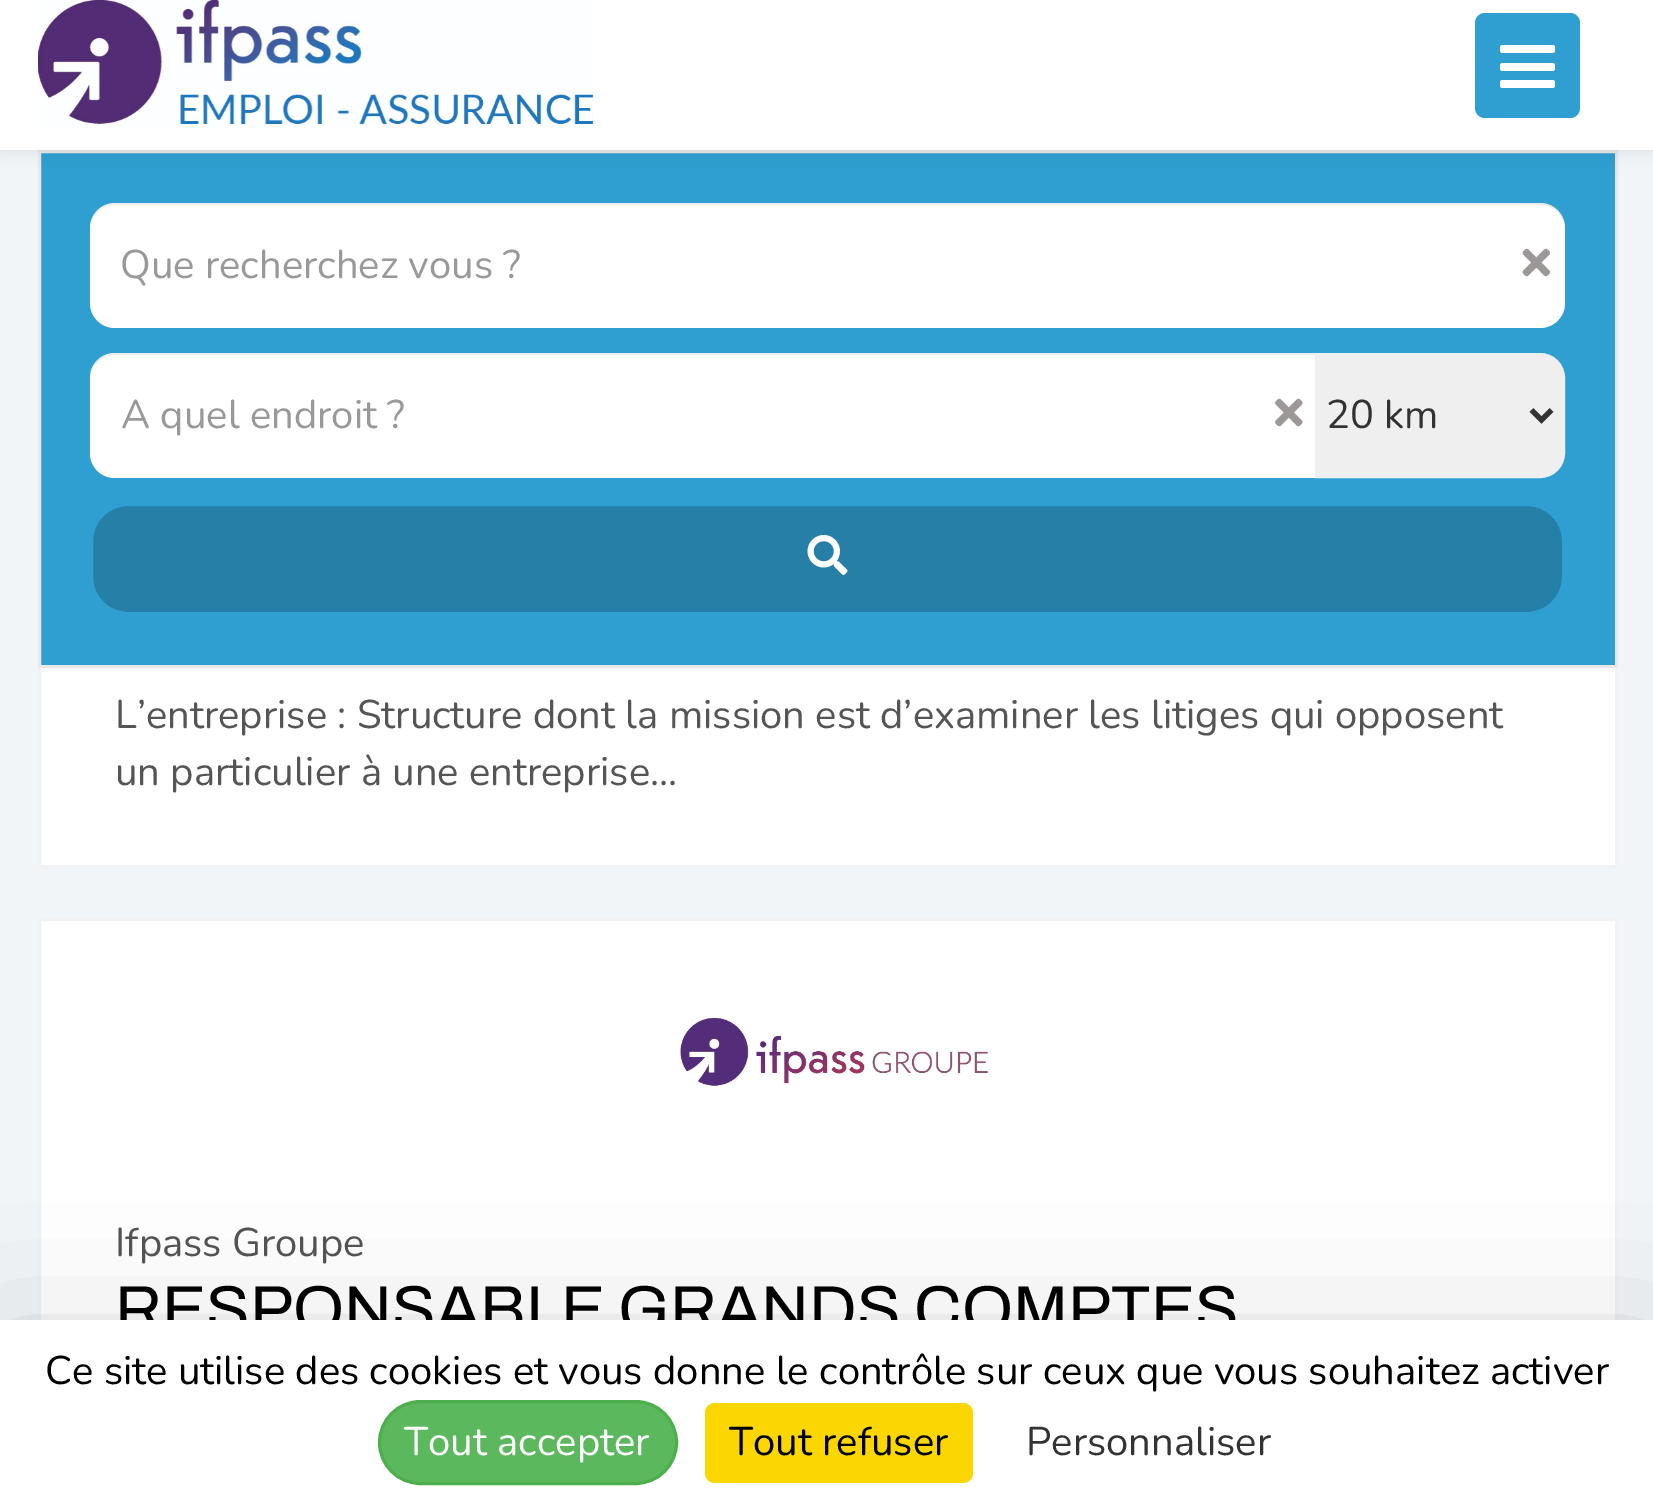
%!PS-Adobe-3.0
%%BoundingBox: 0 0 1653 1510
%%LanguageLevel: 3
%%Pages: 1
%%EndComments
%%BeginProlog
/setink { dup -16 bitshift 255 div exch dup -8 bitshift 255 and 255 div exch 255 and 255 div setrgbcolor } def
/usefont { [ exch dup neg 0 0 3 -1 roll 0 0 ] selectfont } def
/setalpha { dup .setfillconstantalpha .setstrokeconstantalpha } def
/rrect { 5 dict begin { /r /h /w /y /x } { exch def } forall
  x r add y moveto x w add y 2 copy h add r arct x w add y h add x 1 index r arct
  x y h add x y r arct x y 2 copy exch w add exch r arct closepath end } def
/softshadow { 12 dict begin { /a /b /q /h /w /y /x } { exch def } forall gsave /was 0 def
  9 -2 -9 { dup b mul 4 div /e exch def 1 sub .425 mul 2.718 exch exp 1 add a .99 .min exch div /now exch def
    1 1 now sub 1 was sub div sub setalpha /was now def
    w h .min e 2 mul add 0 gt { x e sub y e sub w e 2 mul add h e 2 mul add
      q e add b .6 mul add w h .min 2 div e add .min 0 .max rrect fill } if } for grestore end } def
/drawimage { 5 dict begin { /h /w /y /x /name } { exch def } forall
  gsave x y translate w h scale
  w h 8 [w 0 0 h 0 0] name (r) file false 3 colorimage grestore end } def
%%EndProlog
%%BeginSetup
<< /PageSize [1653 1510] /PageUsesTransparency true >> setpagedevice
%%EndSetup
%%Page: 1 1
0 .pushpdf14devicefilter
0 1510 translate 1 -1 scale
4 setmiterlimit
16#F2F5F7 setink
0 0 1653 1510 rectfill
16#FFFFFF setink
41 668 1574 197 rectfill
16#F2F2F2 setink
3 setlinewidth
39.5 216.5 1577 650 rectstroke
16#2E9FD0 setink
39.5 151.5 moveto 1616.5 151.5 lineto 1616.5 666.5 lineto 39.5 666.5 lineto closepath gsave fill grestore
16#E8E8E8 setink
stroke
16#000000 setink
0 0 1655 150 0 9 0.1 softshadow
16#FFFFFF setink
0 0 1653 150 rectfill
(img1.raw) 38 0 556 128 drawimage
16#2E9FD0 setink
1475 13 105 105 10 rrect fill
16#FFFFFF setink
1500 45 55 8 2.5 rrect fill
1500 63 55 8 2.5 rrect fill
1500 80 55 8 2.5 rrect fill
90 203 1475 125 25 rrect fill
0.07 setalpha
16#000000 setink
115 205 moveto 1540 205 lineto 1554 205 1565 216 1565 230 curveto 1565 228 lineto 1565 214 1554 203 1540 203 curveto 115 203 lineto 101 203 90 214 90 228 curveto 90 230 lineto 90 216 101 205 115 205 curveto closepath fill
/Nunito-Regular 40 usefont
1 setalpha
16#999999 setink
120 278 moveto (Que recherchez vous ?) show
(img2.raw) 1522 248 28 29 drawimage
16#FFFFFF setink
115 353 moveto 1315 353 lineto 1315 478 lineto 115 478 lineto 101 478 90 467 90 453 curveto 90 378 lineto 90 364 101 353 115 353 curveto closepath fill
0.07 setalpha
16#000000 setink
115 355 moveto 1315 355 lineto 1315 353 lineto 115 353 lineto 100 353 90 365 90 380 curveto 90 366 101 355 115 355 curveto closepath fill
1 setalpha
16#999999 setink
121 428 moveto (A quel endroit ?) show
(img3.raw) 1275 398 28 29 drawimage
16#EFEFEF setink
1316.5 354.5 moveto 1540 354.5 lineto 1553 354.5 1563.5 365 1563.5 378 curveto 1563.5 453 lineto 1563.5 466 1553 476.5 1540 476.5 curveto 1316.5 476.5 lineto closepath gsave fill grestore
stroke
16#333333 setink
5 setlinewidth
1531.5 410 moveto 1541.5 420 lineto 1551.5 410 lineto stroke
1326 428 moveto (20 km) show
16#257FA6 setink
91.5 504.5 1472 109 36.5 rrect gsave fill grestore
16#2E9FD0 setink
3 setlinewidth
stroke
(img4.raw) 807 535 41 40 drawimage
16#555555 setink
115 728 moveto (L’entreprise : Structure dont la mission est d’examiner les litiges qui opposent) show
115 785 moveto (un particulier à une entreprise...) show
16#FFFFFF setink
41 921 1574 399 rectfill
16#F2F2F2 setink
39.5 919.5 1577 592 rectstroke
(img5.raw) 680 1018 308 68 drawimage
16#555555 setink
115 1256 moveto (Ifpass Groupe) show
/Archivo-Regular 65 usefont
16#000000 setink
115 1331 moveto (RESPONSABLE GRANDS COMPTES) show
0 1370 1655 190 0 75 0.25 softshadow
16#FFFFFF setink
0 1320 1653 190 rectfill
/Nunito-Regular 40 usefont
16#000000 setink
45 1384 moveto (Ce site utilise des cookies et vous donne le contrôle sur ceux que vous souhaitez activer) show
16#5CB85C setink
379.5 1401.5 297 82 41 rrect gsave fill grestore
16#4CAE4C setink
stroke
16#FFFFFF setink
404 1455 moveto (Tout accepter) show
16#FBD600 setink
705 1403 268 80 10 rrect fill
16#000000 setink
729 1455 moveto (Tout refuser) show
16#333333 setink
1026 1455 moveto (Personnaliser) show
.poppdf14devicefilter showpage
%%EOF
